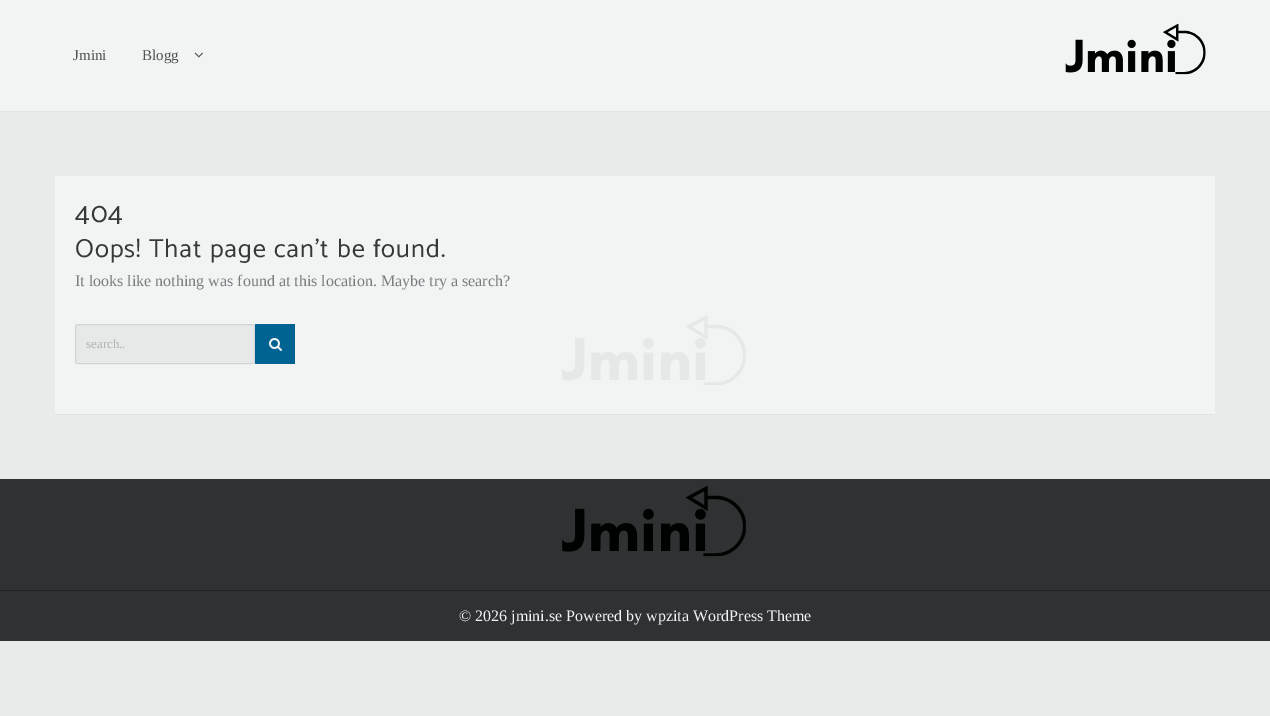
%!PS-Adobe-3.0
%%BoundingBox: 0 0 1270 716
%%LanguageLevel: 3
%%Pages: 1
%%EndComments
%%BeginProlog
/setink { dup -16 bitshift 255 div exch dup -8 bitshift 255 and 255 div exch 255 and 255 div setrgbcolor } def
/usefont { [ exch dup neg 0 0 3 -1 roll 0 0 ] selectfont } def
/rrect { 5 dict begin { /r /h /w /y /x } { exch def } forall
  x r add y moveto x w add y 2 copy h add r arct x w add y h add x 1 index r arct
  x y h add x y r arct x y 2 copy exch w add exch r arct closepath end } def
/drawimage { 5 dict begin { /h /w /y /x /name } { exch def } forall
  gsave x y translate w h scale
  w h 8 [w 0 0 h 0 0] name (r) file false 3 colorimage grestore end } def
%%EndProlog
%%BeginSetup
<< /PageSize [1270 716] >> setpagedevice
%%EndSetup
%%Page: 1 1
0 716 translate 1 -1 scale
4 setmiterlimit
16#E9EAEA setink
0 0 1270 716 rectfill
16#F2F3F3 setink
0 0 1270 111 rectfill
16#E2E3E3 setink
0 111 1270 1 rectfill
/LiberationSerif-Regular 15 usefont
16#515252 setink
73 60 moveto (Jmini) show
142 60 moveto (Blogg) show
(img1.raw) 194 52 9 6 drawimage
(img2.raw) 1065 23 141 52 drawimage
16#E2E3E3 setink
55 414 1160 1 rectfill
16#F2F3F3 setink
55 176 1160 238 rectfill
/Catamaran-Regular 28 usefont
16#373838 setink
75 222 moveto 1 0 (404) ashow
/Catamaran-Regular 26 usefont
75 257 moveto 1 0 (Oops! That page can’t be found.) ashow
/LiberationSerif-Regular 16 usefont
16#7A7C7F setink
75 286 moveto (It looks like nothing was found at this location. Maybe try a search?) show
16#E7E8E8 setink
75.5 324.5 179 39 2.5 rrect gsave fill grestore
16#D2D3D3 setink
stroke
/LiberationSerif-Regular 13 usefont
16#B2B3B3 setink
86 348 moveto (search..) show
16#006392 setink
255 324 40 40 rectfill
(img3.raw) 269 338 13 13 drawimage
16#303132 setink
0 479 1270 110 rectfill
16#323333 setink
0 589 1270 1 rectfill
(img4.raw) 562 486 184 71 drawimage
16#303132 setink
0 591 1270 50 rectfill
16#212222 setink
0 590 1270 1 rectfill
/LiberationSerif-Regular 16 usefont
16#F2F3F3 setink
459 621 moveto (© 2026 jmini.se Powered by wpzita WordPress Theme) show
(img5.raw) 562 315 184 70 drawimage
showpage
%%EOF
